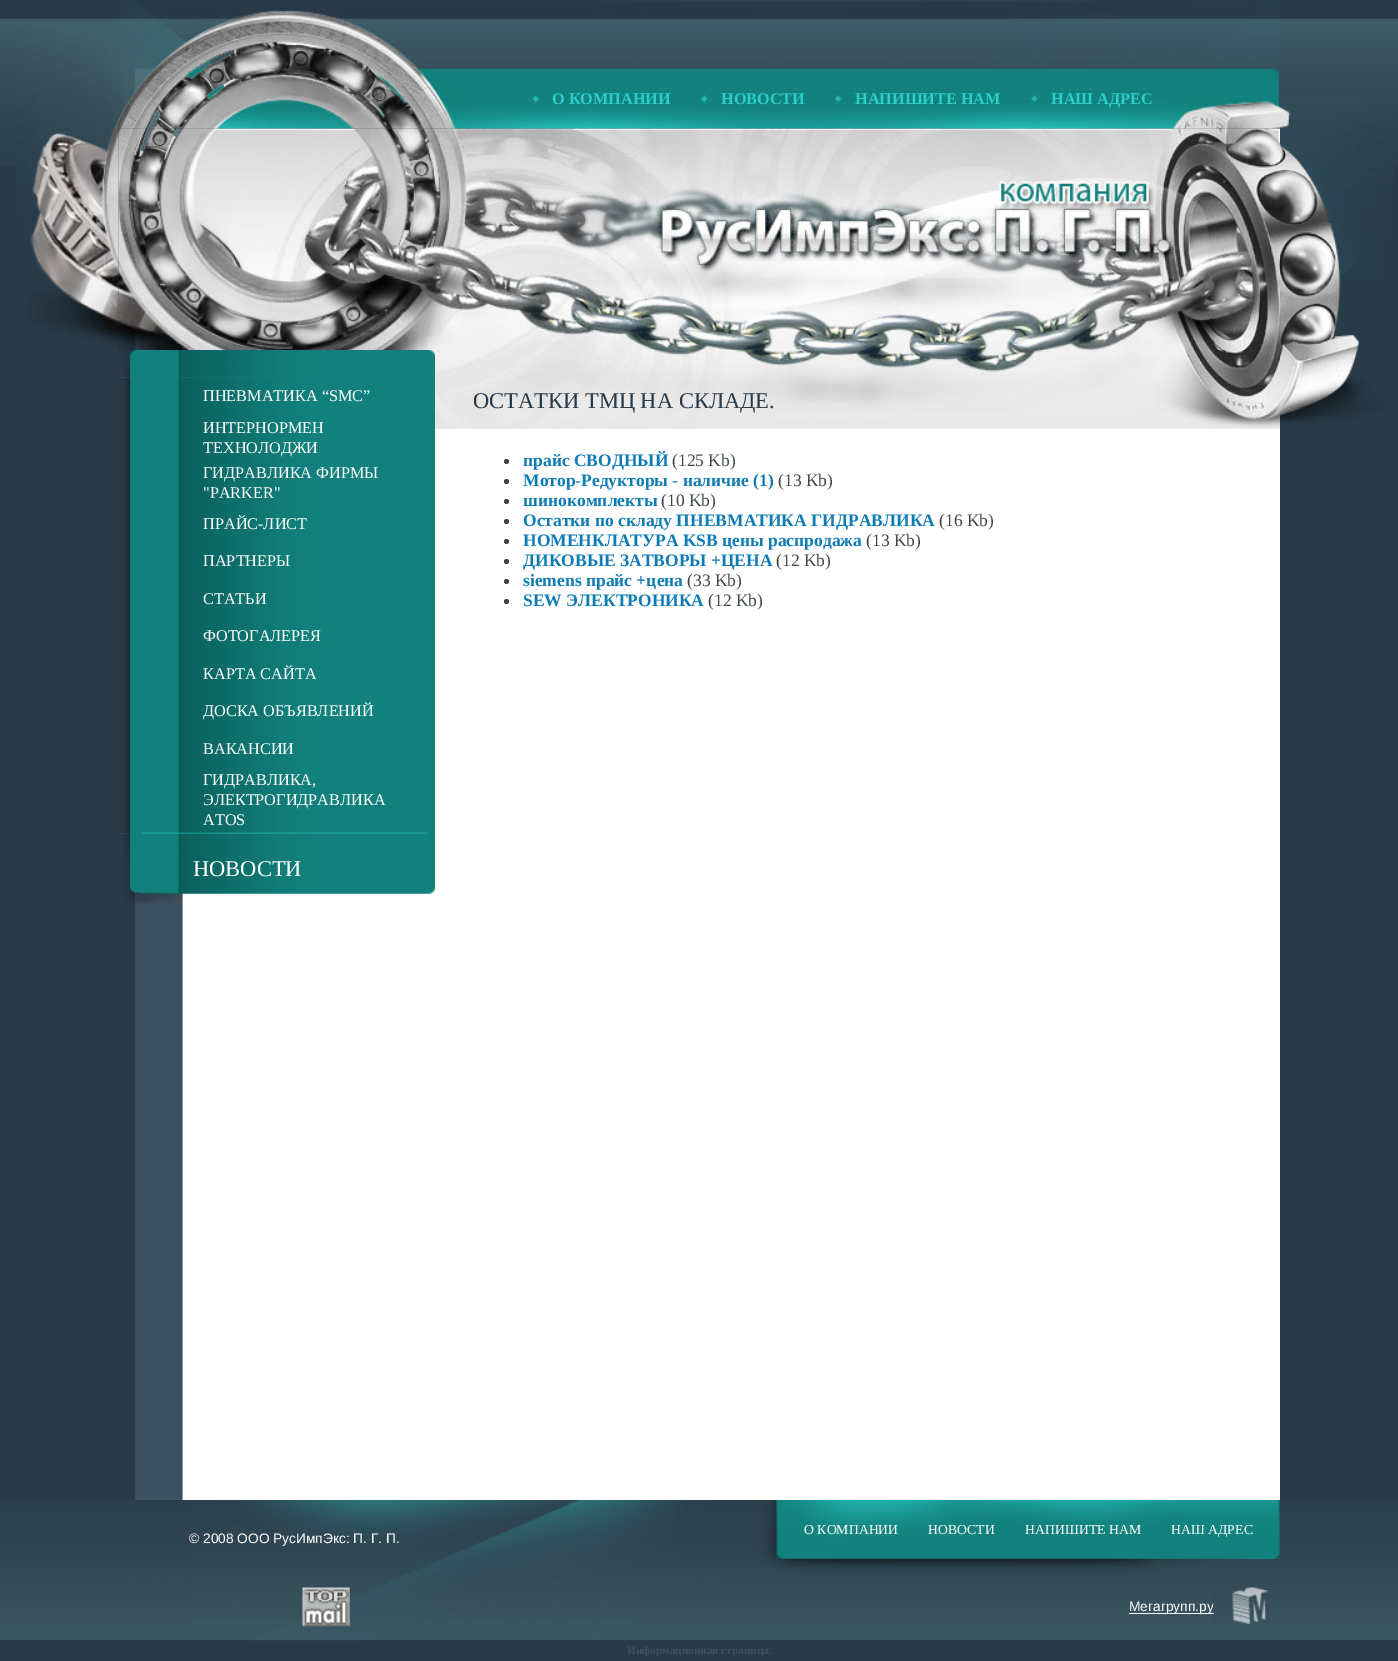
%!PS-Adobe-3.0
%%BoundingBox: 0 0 1398 1661
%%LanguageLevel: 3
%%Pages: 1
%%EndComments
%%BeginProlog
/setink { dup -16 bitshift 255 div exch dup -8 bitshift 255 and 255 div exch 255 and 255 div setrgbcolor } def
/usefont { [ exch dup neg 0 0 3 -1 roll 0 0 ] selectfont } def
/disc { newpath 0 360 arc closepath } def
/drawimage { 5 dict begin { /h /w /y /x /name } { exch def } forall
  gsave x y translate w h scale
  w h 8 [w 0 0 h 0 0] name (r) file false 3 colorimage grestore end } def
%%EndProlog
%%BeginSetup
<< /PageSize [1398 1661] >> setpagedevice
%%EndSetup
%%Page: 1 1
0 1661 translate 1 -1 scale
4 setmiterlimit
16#293A48 setink
0 0 1398 1661 rectfill
(img1.raw) 0 18 1398 148 drawimage
(img2.raw) 0 1501 1398 139 drawimage
(img3.raw) 16 24 103 322 drawimage
(img4.raw) 118 0 1162 129 drawimage
(img5.raw) 532 95 7 8 drawimage
/LiberationSerif-Bold 16.25 usefont
16#2DCFCA setink
552 104 moveto (О КОМПАНИИ) show
(img6.raw) 701 95 7 8 drawimage
721 104 moveto (НОВОСТИ) show
(img7.raw) 835 95 7 8 drawimage
855 104 moveto (НАПИШИТЕ НАМ) show
(img8.raw) 1031 95 7 8 drawimage
1051 104 moveto (НАШ АДРЕС) show
(img9.raw) 118 128 1162 222 drawimage
16#FFFFFF setink
183 377 1097 1123 rectfill
(img10.raw) 119 377 64 1123 drawimage
(img12.raw) 119 377 316 457 drawimage
(img11.raw) 119 350 316 28 drawimage
/LiberationSerif-Regular 16.25 usefont
[
    [(ПНЕВМАТИКА “SMC”) 203 401]
    [(ИНТЕРНОРМЕН) 203 433]
    [(ТЕХНОЛОДЖИ) 203 453]
    [(ГИДРАВЛИКА ФИРМЫ) 203 478]
    [("PARKER") 203 498]
    [(ПРАЙС-ЛИСТ) 203 529]
    [(ПАРТНЕРЫ) 203 566]
    [(СТАТЬИ) 203 604]
    [(ФОТОГАЛЕРЕЯ) 203 641]
    [(КАРТА САЙТА) 203 679]
    [(ДОСКА ОБЪЯВЛЕНИЙ) 203 716]
    [(ВАКАНСИИ) 203 754]
    [(ГИДРАВЛИКА,) 203 785]
    [(ЭЛЕКТРОГИДРАВЛИКА) 203 805]
    [(ATOS) 203 825]
] { aload pop moveto show } forall
(img14.raw) 119 833 316 71 drawimage
(img13.raw) 142 832 286 2 drawimage
/LiberationSerif-Regular 22.5 usefont
193 876 moveto (НОВОСТИ) show
(img15.raw) 435 350 845 80 drawimage
16#293A48 setink
473 408 moveto (ОСТАТКИ ТМЦ НА СКЛАДЕ.) show
16#3E464A setink
506.5 461.5 2.5 disc fill
/LiberationSerif-Bold 17.5 usefont
16#0D7CB5 setink
523 466 moveto (прайс СВОДНЫЙ) show
/LiberationSerif-Regular 17.5 usefont
16#3E464A setink
672 466 moveto (\(125 Kb\)) show
506.5 481.5 2.5 disc fill
/LiberationSerif-Bold 17.5 usefont
16#0D7CB5 setink
523 486 moveto (Мотор-Редукторы - наличие \(1\)) show
/LiberationSerif-Regular 17.5 usefont
16#3E464A setink
778 486 moveto (\(13 Kb\)) show
506.5 501.5 2.5 disc fill
/LiberationSerif-Bold 17.5 usefont
16#0D7CB5 setink
523 506 moveto (шинокомплекты) show
/LiberationSerif-Regular 17.5 usefont
16#3E464A setink
661 506 moveto (\(10 Kb\)) show
506.5 521.5 2.5 disc fill
/LiberationSerif-Bold 17.5 usefont
16#0D7CB5 setink
523 526 moveto (Остатки по складу ПНЕВМАТИКА ГИДРАВЛИКА) show
/LiberationSerif-Regular 17.5 usefont
16#3E464A setink
939 526 moveto (\(16 Kb\)) show
506.5 541.5 2.5 disc fill
/LiberationSerif-Bold 17.5 usefont
16#0D7CB5 setink
523 546 moveto (НОМЕНКЛАТУРА KSB цены распродажа) show
/LiberationSerif-Regular 17.5 usefont
16#3E464A setink
866 546 moveto (\(13 Kb\)) show
506.5 561.5 2.5 disc fill
/LiberationSerif-Bold 17.5 usefont
16#0D7CB5 setink
523 566 moveto (ДИКОВЫЕ ЗАТВОРЫ +ЦЕНА) show
/LiberationSerif-Regular 17.5 usefont
16#3E464A setink
776 566 moveto (\(12 Kb\)) show
506.5 581.5 2.5 disc fill
/LiberationSerif-Bold 17.5 usefont
16#0D7CB5 setink
523 586 moveto (siemens прайс +цена) show
/LiberationSerif-Regular 17.5 usefont
16#3E464A setink
687 586 moveto (\(33 Kb\)) show
506.5 601.5 2.5 disc fill
/LiberationSerif-Bold 17.5 usefont
16#0D7CB5 setink
523 606 moveto (SEW ЭЛЕКТРОНИКА) show
/LiberationSerif-Regular 17.5 usefont
16#3E464A setink
708 606 moveto (\(12 Kb\)) show
(img16.raw) 119 1500 637 141 drawimage
(img18.raw) 776 1500 504 59 drawimage
(img19.raw) 776 1500 449 59 drawimage
(img17.raw) 756 1500 21 67 drawimage
(img20.raw) 1260 1500 20 59 drawimage
/LiberationSerif-Regular 13.75 usefont
16#FFFFFF setink
[
    [(О КОМПАНИИ) 804 1534]
    [(НОВОСТИ) 928 1534]
    [(НАПИШИТЕ НАМ) 1025 1534]
    [(НАШ АДРЕС) 1171 1534]
] { aload pop moveto show } forall
(img21.raw) 776 1558 471 15 drawimage
/LiberationSans-Regular 13.75 usefont
189 1543 moveto (© 2008 ООО РусИмпЭкс: П. Г. П.) show
(img22.raw) 302 1587 48 40 drawimage
1129 1613 85 1 rectfill
1129 1611 moveto (Мегагрупп.ру) show
(img23.raw) 1213 1587 56 37 drawimage
/LiberationSerif-Bold 11.25 usefont
16#3F5160 setink
627 1654 moveto (Информационная страница.) show
(img24.raw) 1280 96 114 333 drawimage
showpage
%%EOF
